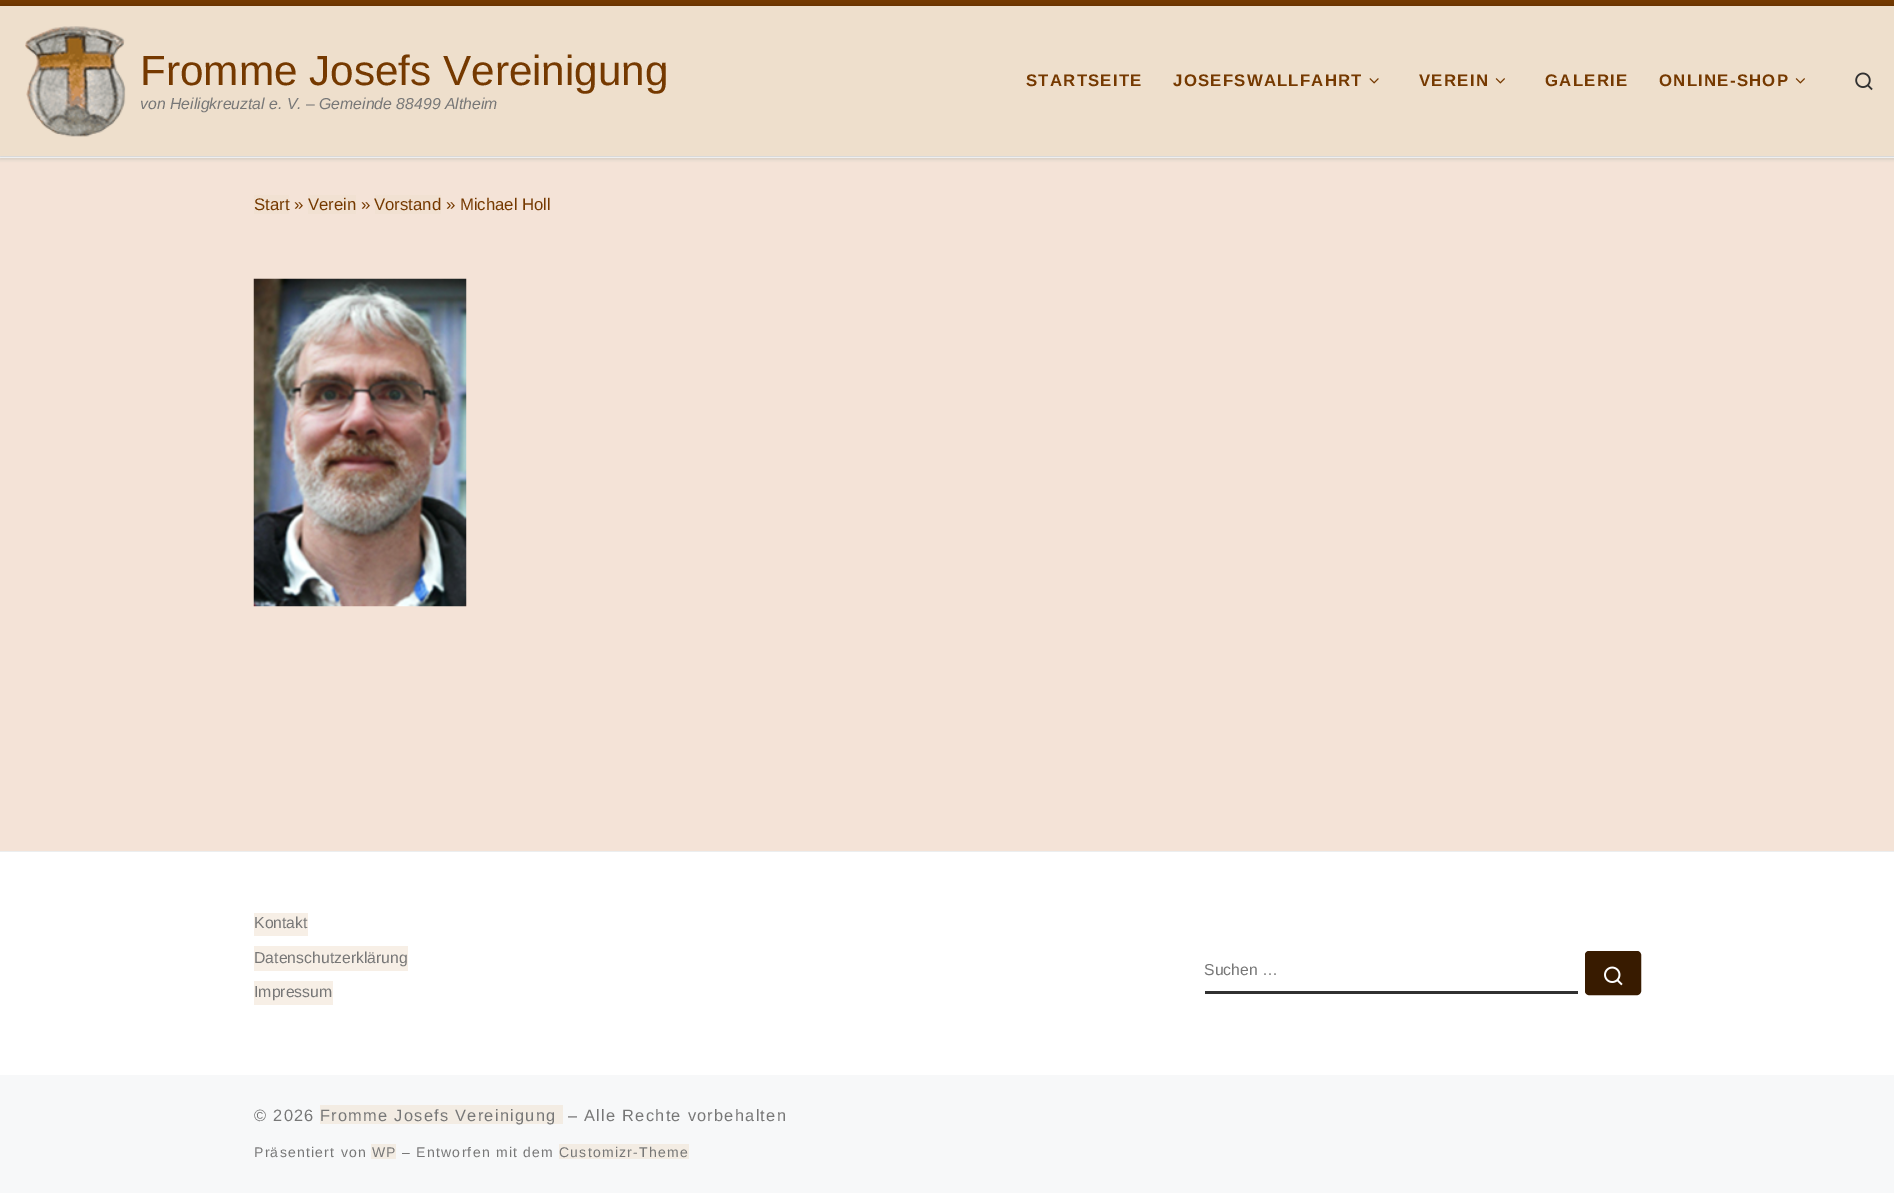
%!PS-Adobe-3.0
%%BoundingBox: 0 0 1894 1193
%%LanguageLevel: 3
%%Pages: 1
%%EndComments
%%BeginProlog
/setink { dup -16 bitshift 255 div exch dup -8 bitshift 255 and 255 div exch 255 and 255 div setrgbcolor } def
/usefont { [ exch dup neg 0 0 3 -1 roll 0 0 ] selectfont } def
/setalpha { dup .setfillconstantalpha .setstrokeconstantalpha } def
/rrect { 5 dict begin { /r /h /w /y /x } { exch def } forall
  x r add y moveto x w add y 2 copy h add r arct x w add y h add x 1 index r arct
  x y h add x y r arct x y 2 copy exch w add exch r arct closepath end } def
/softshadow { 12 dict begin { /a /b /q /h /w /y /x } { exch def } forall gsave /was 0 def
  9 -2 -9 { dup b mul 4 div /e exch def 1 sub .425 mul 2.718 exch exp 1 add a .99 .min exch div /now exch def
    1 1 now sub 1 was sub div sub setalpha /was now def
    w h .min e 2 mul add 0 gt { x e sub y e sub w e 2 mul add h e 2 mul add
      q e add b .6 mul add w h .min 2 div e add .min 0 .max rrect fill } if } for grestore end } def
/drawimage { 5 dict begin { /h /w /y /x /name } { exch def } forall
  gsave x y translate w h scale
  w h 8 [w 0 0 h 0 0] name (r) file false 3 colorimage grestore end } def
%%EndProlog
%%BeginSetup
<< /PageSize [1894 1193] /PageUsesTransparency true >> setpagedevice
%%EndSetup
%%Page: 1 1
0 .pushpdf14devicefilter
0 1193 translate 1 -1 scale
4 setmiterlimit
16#F4E3D7 setink
0 0 1894 1193 rectfill
16#666666 setink
0 3 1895 157 0 1 0.08 softshadow
[
    [0 157 1894 1 16#FFFFFF]
    [0 0 1894 6 16#753900]
    [0 156 1894 1 16#ECECEC]
] { aload pop setink rectfill } forall
0.15 setalpha
[
    [0 156 1894 1 16#FFFFFF]
] { aload pop setink rectfill } forall
1 setalpha
16#000000 setink
0 6 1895 150 0 3 0.2 softshadow
16#EEDFCC setink
0 6 1894 150 rectfill
(img1.raw) 25 26 101 111 drawimage
/LiberationSans-Regular 42.25 usefont
16#753900 setink
140 85 moveto (Fromme Josefs Vereinigung) show
/LiberationSans-Italic 15.8 usefont
16#777777 setink
140 109 moveto (von Heiligkreuztal e. V. – Gemeinde 88499 Altheim) show
/LiberationSans-Bold 16.75 usefont
16#753900 setink
1026 86 moveto 1.25 0 (STARTSEITE) ashow
1173 86 moveto 1.25 0 (JOSEFSWALLFAHRT) ashow
(img2.raw) 1369 78 10 6 drawimage
1419 86 moveto 1.25 0 (VEREIN) ashow
(img3.raw) 1495 78 10 6 drawimage
1545 86 moveto 1.25 0 (GALERIE) ashow
1659 86 moveto 1.25 0 (ONLINE-SHOP) ashow
(img3.raw) 1795 78 10 6 drawimage
(img4.raw) 1855 72 18 19 drawimage
16#F1E1D2 setink
254 195 35 19 rectfill
/LiberationSans-Regular 16.75 usefont
16#753900 setink
254 210 moveto (Start ») show
16#F1E1D2 setink
308 195 48 19 rectfill
16#753900 setink
308 210 moveto (Verein ») show
16#F1E1D2 setink
375 195 66 19 rectfill
16#753900 setink
374 210 moveto (Vorstand » Michael Holl) show
(img5.raw) 253 278 214 329 drawimage
[
    [0 852 1894 223 16#FFFFFF]
    [0 851 1894 1 16#ECEEEF]
    [254 913 54 23 16#F7EFE6]
] { aload pop setink rectfill } forall
/LiberationSans-Regular 15.8 usefont
16#777777 setink
254 928 moveto (Kontakt) show
16#F7EFE6 setink
254 946 154 25 rectfill
16#777777 setink
254 963 moveto (Datenschutzerklärung) show
16#F7EFE6 setink
254 981 79 24 rectfill
16#777777 setink
254 997 moveto (Impressum) show
16#313131 setink
1205 991 373 3 rectfill
16#777777 setink
1204 975 moveto (Suchen …) show
16#381B00 setink
1586.5 952.5 53 41 2.5 rrect gsave fill grestore
3 setlinewidth
stroke
(img6.raw) 1604 966 19 20 drawimage
16#F7F8F9 setink
0 1075 1894 118 rectfill
/LiberationSans-Regular 16.4 usefont
16#777777 setink
254 1121 moveto 1.25 0 (© 2026) ashow
16#F3ECE3 setink
320 1105 243 19 rectfill
16#777777 setink
320 1121 moveto 1.25 0 (Fromme Josefs Vereinigung) ashow
568 1121 moveto 1.25 0 (– Alle Rechte vorbehalten) ashow
/LiberationSans-Regular 14 usefont
254 1157 moveto 1.25 0 (Präsentiert von) ashow
16#F3ECE3 setink
371 1144 25 15 rectfill
16#777777 setink
372 1157 moveto 1.25 0 (WP – Entworfen mit dem) ashow
16#F3ECE3 setink
559 1144 130 15 rectfill
16#777777 setink
559 1157 moveto 1.25 0 (Customizr-Theme) ashow
.poppdf14devicefilter showpage
%%EOF
